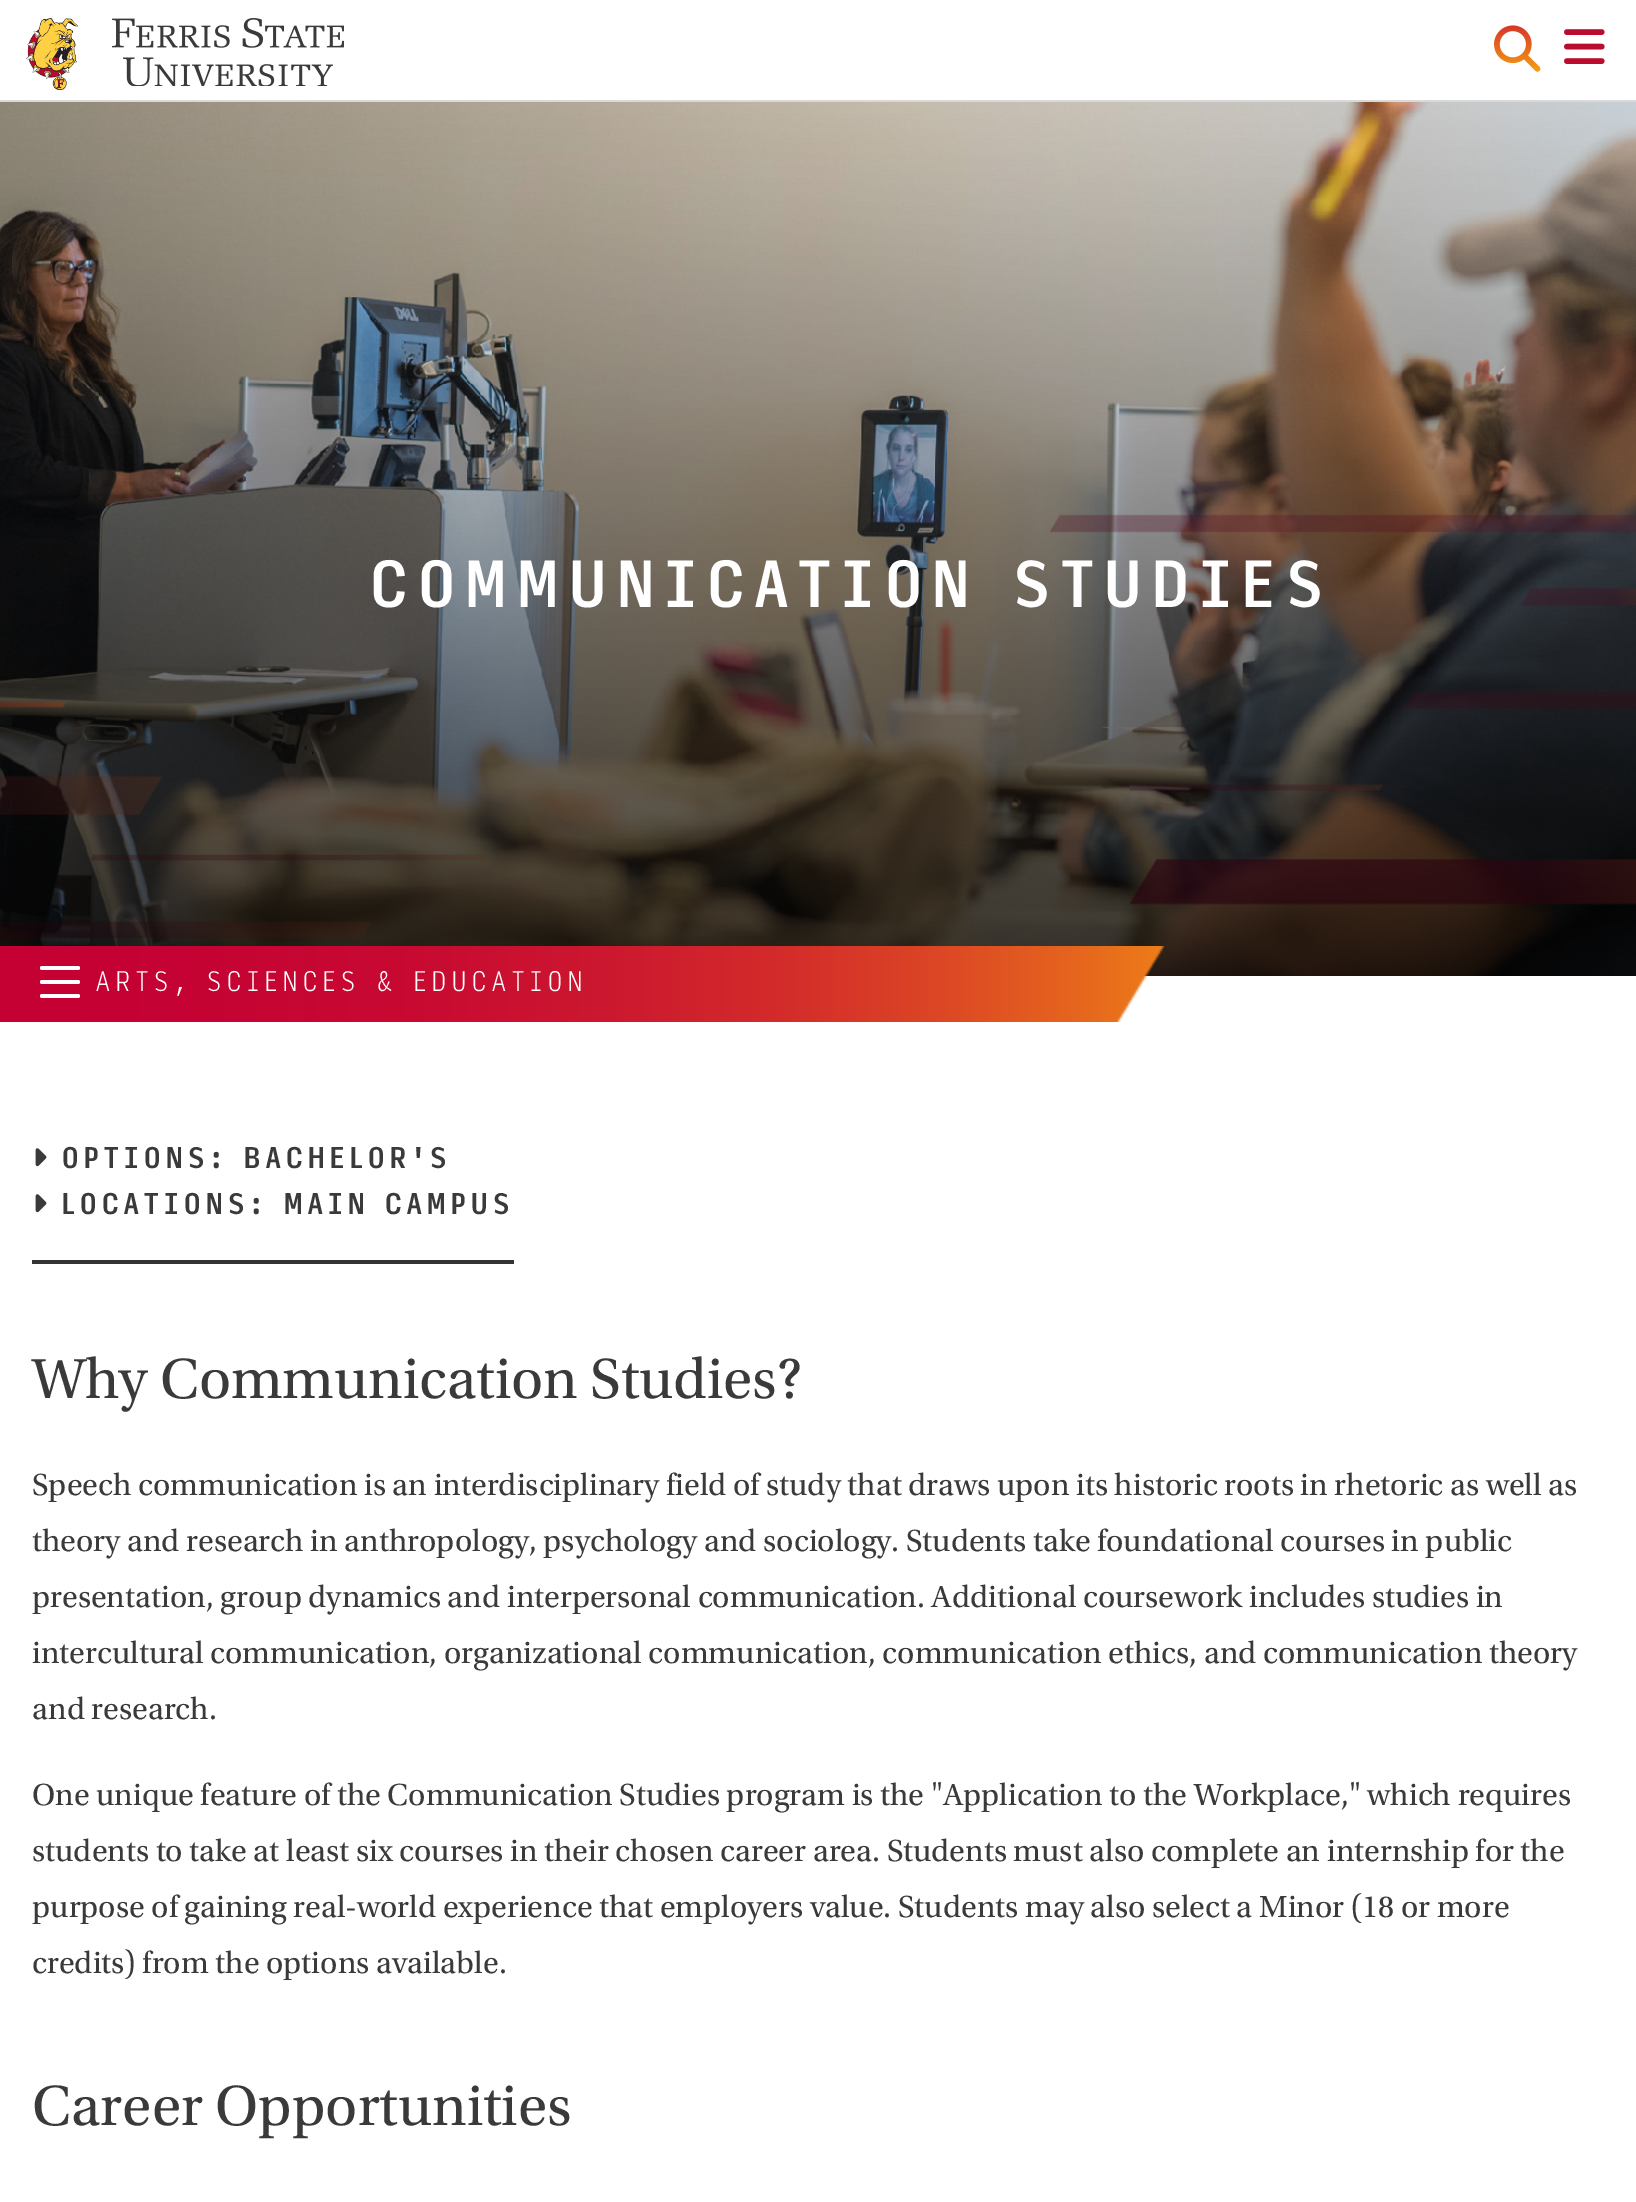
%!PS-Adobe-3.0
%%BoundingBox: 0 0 1636 2202
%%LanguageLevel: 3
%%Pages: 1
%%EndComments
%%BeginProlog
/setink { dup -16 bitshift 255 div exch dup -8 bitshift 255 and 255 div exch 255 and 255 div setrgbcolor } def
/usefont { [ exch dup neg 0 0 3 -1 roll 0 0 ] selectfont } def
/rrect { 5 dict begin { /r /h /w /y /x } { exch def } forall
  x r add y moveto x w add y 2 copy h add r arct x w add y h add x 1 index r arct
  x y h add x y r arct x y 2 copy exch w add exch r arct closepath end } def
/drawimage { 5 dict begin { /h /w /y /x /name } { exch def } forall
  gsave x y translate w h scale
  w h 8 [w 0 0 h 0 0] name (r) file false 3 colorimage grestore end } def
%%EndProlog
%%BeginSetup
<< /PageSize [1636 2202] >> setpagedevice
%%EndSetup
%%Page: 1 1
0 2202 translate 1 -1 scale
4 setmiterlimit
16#FFFFFF setink
0 0 1636 2202 rectfill
16#D9D9D9 setink
0 100 1636 2 rectfill
(img1.raw) 26 18 52 72 drawimage
(img2.raw) 112 18 232 68 drawimage
(img3.raw) 1494 25 47 47 drawimage
(img4.raw) 1564 29 41 35 drawimage
(img5.raw) 0 102 1636 874 drawimage
/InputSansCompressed-Medium 64 usefont
16#FFFFFF setink
368 607 moveto 6.4 0 (COMMUNICATION STUDIES) ashow
(img6.raw) 0 946 1164 76 drawimage
40 966 40 4 2 rrect fill
40 980 40 4 2 rrect fill
40 994 40 4 2 rrect fill
/InputSansCompressed-ExtraLight 27.25 usefont
95 991 moveto 4 0 (ARTS, SCIENCES & EDUCATION) ashow
16#333333 setink
32 1260 482 4 rectfill
(img7.raw) 35 1148 12 19 drawimage
/InputSansCompressed-Medium 28.75 usefont
16#3A3A3A setink
61 1168 moveto 3.5 0 (OPTIONS: BACHELOR'S) ashow
(img7.raw) 35 1194 12 19 drawimage
61 1214 moveto 3.5 0 (LOCATIONS: MAIN CAMPUS) ashow
/Utopia-Regular 59.4 usefont
32 1398 moveto (Why Communication Studies?) show
/Utopia-Regular 32 usefont
[
    [(Speech communication is an interdisciplinary field of study that draws upon its historic roots in rhetoric as well as) 32 1495]
    [(theory and research in anthropology, psychology and sociology. Students take foundational courses in public) 32 1551]
    [(presentation, group dynamics and interpersonal communication. Additional coursework includes studies in) 32 1607]
    [(intercultural communication, organizational communication, communication ethics, and communication theory) 32 1663]
    [(and research.) 32 1719]
    [(One unique feature of the Communication Studies program is the "Application to the Workplace," which requires) 32 1805]
    [(students to take at least six courses in their chosen career area. Students must also complete an internship for the) 32 1861]
    [(purpose of gaining real-world experience that employers value. Students may also select a Minor \(18 or more) 32 1917]
    [(credits\) from the options available.) 32 1973]
] { aload pop moveto show } forall
/Utopia-Regular 59.4 usefont
32 2125 moveto (Career Opportunities) show
showpage
%%EOF
